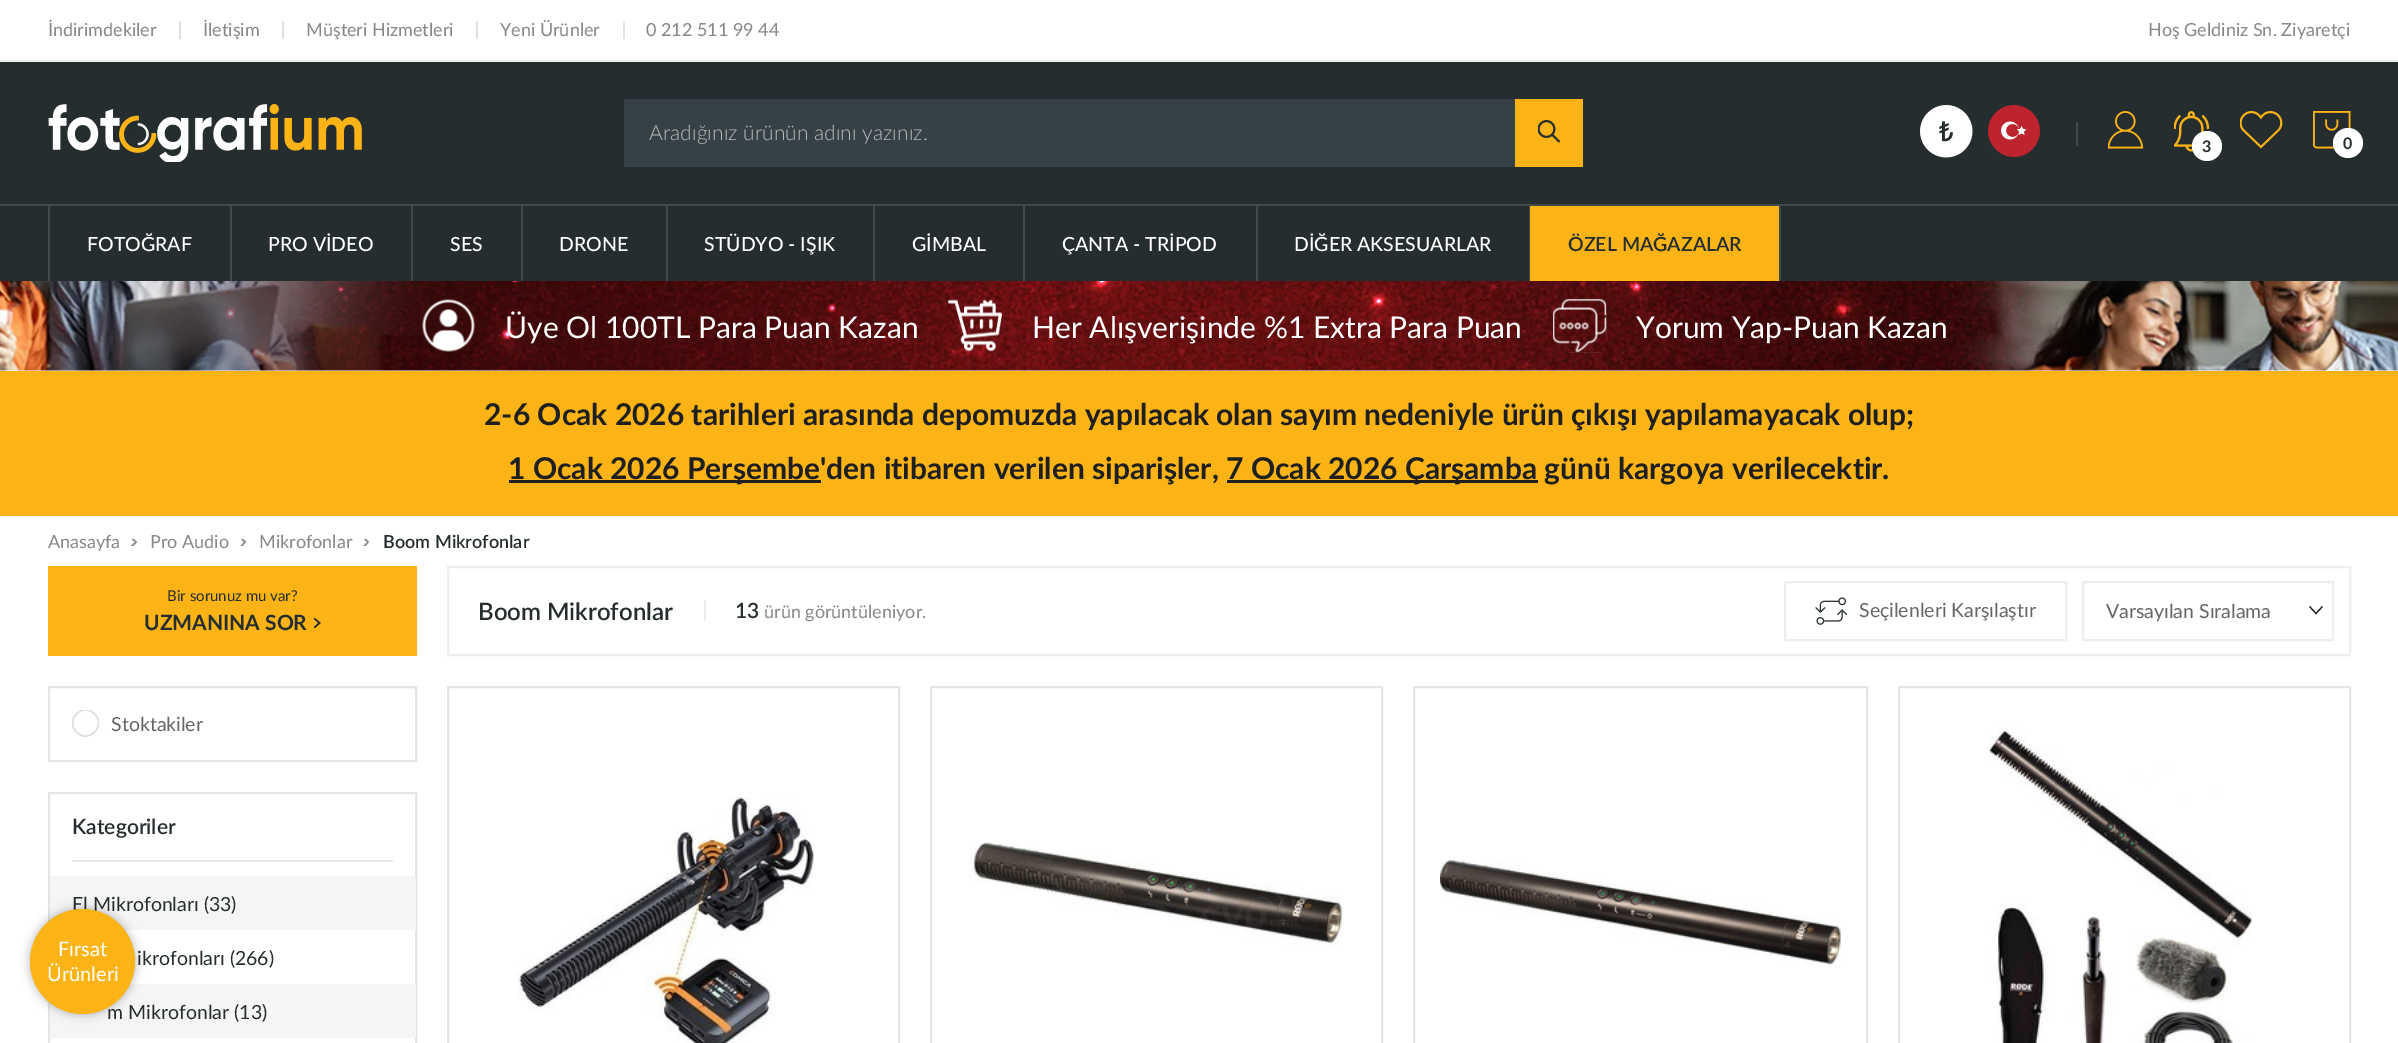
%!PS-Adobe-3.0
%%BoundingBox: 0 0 2398 1043
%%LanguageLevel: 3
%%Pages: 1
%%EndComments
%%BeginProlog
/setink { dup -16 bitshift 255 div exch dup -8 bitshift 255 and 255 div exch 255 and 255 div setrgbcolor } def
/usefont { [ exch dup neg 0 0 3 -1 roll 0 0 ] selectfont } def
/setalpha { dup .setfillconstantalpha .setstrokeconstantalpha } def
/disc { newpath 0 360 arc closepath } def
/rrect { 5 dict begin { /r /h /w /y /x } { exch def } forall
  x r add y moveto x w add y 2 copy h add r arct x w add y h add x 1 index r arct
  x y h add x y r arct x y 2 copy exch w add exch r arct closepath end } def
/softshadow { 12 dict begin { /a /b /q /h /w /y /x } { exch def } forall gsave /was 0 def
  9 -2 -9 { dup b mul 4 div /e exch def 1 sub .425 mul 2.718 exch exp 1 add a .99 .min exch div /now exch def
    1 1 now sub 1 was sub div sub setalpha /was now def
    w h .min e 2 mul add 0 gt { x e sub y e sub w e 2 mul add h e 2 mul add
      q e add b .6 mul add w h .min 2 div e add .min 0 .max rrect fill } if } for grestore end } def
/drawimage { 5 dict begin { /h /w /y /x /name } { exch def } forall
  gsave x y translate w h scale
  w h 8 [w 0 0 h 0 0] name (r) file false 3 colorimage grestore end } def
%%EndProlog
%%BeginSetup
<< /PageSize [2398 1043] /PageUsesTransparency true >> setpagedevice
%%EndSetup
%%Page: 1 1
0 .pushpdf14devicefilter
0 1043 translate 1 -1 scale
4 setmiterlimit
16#FFFFFF setink
0 0 2398 1043 rectfill
16#EEEEEE setink
0 60 2398 2 rectfill
/Lato-Regular 18 usefont
16#888888 setink
48 36 moveto (İndirimdekiler) show
16#E1E1E1 setink
179 21 2 18 rectfill
16#888888 setink
203 36 moveto (İletişim) show
16#E1E1E1 setink
282 21 2 18 rectfill
16#888888 setink
306 36 moveto (Müşteri Hizmetleri) show
16#E1E1E1 setink
476 21 2 18 rectfill
16#888888 setink
500 36 moveto (Yeni Ürünler) show
16#E1E1E1 setink
623 21 2 18 rectfill
16#888888 setink
646 36 moveto (0 212 511 99 44) show
2148 36 moveto (Hoş Geldiniz Sn. Ziyaretçi) show
16#252D2F setink
0 62 2398 219 rectfill
(img1.raw) 48 104 314 58 drawimage
16#354144 setink
624 99 891 68 rectfill
/Lato-Light 21 usefont
16#BBBBBB setink
649 140 moveto (Aradığınız ürünün adını yazınız.) show
16#FCB315 setink
1515 99 68 68 rectfill
(img2.raw) 1538 120 22 23 drawimage
(img3.raw) 1920 105 53 53 drawimage
(img4.raw) 1988 105 52 52 drawimage
16#3F4A4C setink
2076 122 2 24 rectfill
(img5.raw) 2108 111 36 38 drawimage
(img6.raw) 2174 111 36 41 drawimage
16#FFFFFF setink
2207 146 15 disc fill
/Lato-Bold 16 usefont
16#252D2F setink
2202 152 moveto (3) show
(img7.raw) 2240 111 43 38 drawimage
(img8.raw) 2313 111 38 38 drawimage
16#FFFFFF setink
2348 143 15 disc fill
16#252D2F setink
2343 149 moveto (0) show
[
    [0 204 2398 2 16#3F4A4C]
    [230 206 2 75 16#3F4A4C]
    [48 206 2 75 16#3F4A4C]
] { aload pop setink rectfill } forall
/Lato-Medium 19.5 usefont
16#FFFFFF setink
87 251 moveto (FOTOĞRAF) show
16#3F4A4C setink
411 206 2 75 rectfill
16#FFFFFF setink
268 251 moveto (PRO VİDEO) show
16#3F4A4C setink
521 206 2 75 rectfill
16#FFFFFF setink
450 251 moveto (SES) show
16#3F4A4C setink
666 206 2 75 rectfill
16#FFFFFF setink
559 251 moveto (DRONE) show
16#3F4A4C setink
873 206 2 75 rectfill
16#FFFFFF setink
704 251 moveto (STÜDYO - IŞIK) show
16#3F4A4C setink
1023 206 2 75 rectfill
16#FFFFFF setink
912 251 moveto (GİMBAL) show
16#3F4A4C setink
1256 206 2 75 rectfill
16#FFFFFF setink
1062 251 moveto (ÇANTA - TRİPOD) show
16#3F4A4C setink
1529 206 1 75 rectfill
16#FFFFFF setink
1294 251 moveto (DİĞER AKSESUARLAR) show
16#FCB315 setink
1530 206 249 75 rectfill
16#3F4A4C setink
1779 206 2 75 rectfill
/Lato-SemiBold 19.5 usefont
16#252D2F setink
1568 251 moveto (ÖZEL MAĞAZALAR) show
(img9.raw) 0 281 2398 90 drawimage
(img10.raw) 422 299 53 53 drawimage
/Lato-Regular 30 usefont
16#FFFFFF setink
505 338 moveto (Üye Ol 100TL Para Puan Kazan) show
(img11.raw) 948 299 54 53 drawimage
1032 338 moveto (Her Alışverişinde %1 Extra Para Puan) show
(img12.raw) 1553 299 54 54 drawimage
1636 338 moveto (Yorum Yap-Puan Kazan) show
16#FCB315 setink
0 371 2398 145 rectfill
/Lato-Bold 30 usefont
16#1F1F1F setink
484 425 moveto (2-6 Ocak 2026 tarihleri arasında depomuzda yapılacak olan sayım nedeniyle ürün çıkışı yapılamayacak olup;) show
509 480 312 3 rectfill
508 479 moveto (1 Ocak 2026 Perşembe'den itibaren verilen siparişler,) show
1227 480 311 3 rectfill
1226 479 moveto (7 Ocak 2026 Çarşamba günü kargoya verilecektir.) show
/Lato-Regular 18 usefont
16#888888 setink
48 548 moveto (Anasayfa) show
gsave
131 539 7 7 rectclip
1.5 setlinewidth
2 setlinecap
132 546 moveto 136 542 lineto 132 538.5 lineto stroke
grestore
150 548 moveto (Pro Audio) show
gsave
240 539 8 7 rectclip
1.5 setlinewidth
2 setlinecap
241.5 546 moveto 245 542 lineto 241.5 538.5 lineto stroke
grestore
259 548 moveto (Mikrofonlar) show
gsave
363 539 8 7 rectclip
1.5 setlinewidth
2 setlinecap
364.5 546 moveto 368 542 lineto 364.5 538.5 lineto stroke
grestore
/Lato-SemiBold 18 usefont
16#252D2F setink
383 548 moveto (Boom Mikrofonlar) show
16#FCB315 setink
48 566 369 90 rectfill
/Lato-Regular 15 usefont
16#252D2F setink
167 601 moveto (Bir sorunuz mu var?) show
/Lato-Bold 21 usefont
144 630 moveto (UZMANINA SOR) show
1.5 setlinewidth
2 setlinecap
315 627 moveto 319.5 623 lineto 315 619 lineto stroke
16#E5E5E5 setink
2 setlinewidth
0 setlinecap
49 687 367 74 rectstroke
gsave
72 710 27 27 rectclip
16#DDDDDD setink
1.5 setlinewidth
85.5 723 13 disc stroke
grestore
/Lato-Regular 19.5 usefont
16#666666 setink
111 731 moveto (Stoktakiler) show
16#E5E5E5 setink
49 793 367 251 rectstroke
72 860 321 2 rectfill
/Lato-SemiBold 21 usefont
16#252D2F setink
72 834 moveto (Kategoriler) show
16#F5F5F5 setink
50 876 366 54 rectfill
/Lato-Regular 19.5 usefont
16#252D2F setink
72 911 moveto (El Mikrofonları \(33\)) show
137 965 moveto (ikrofonları \(266\)) show
16#F5F5F5 setink
50 984 366 54 rectfill
16#252D2F setink
107 1019 moveto (m Mikrofonlar \(13\)) show
16#EEEEEE setink
448 567 1902 88 rectstroke
/Lato-SemiBold 24 usefont
16#252D2F setink
478 620 moveto (Boom Mikrofonlar) show
16#EEEEEE setink
704 600 2 21 rectfill
/Lato-SemiBold 21 usefont
16#252D2F setink
735 618 moveto (13) show
/Lato-Regular 18 usefont
16#888888 setink
764 618 moveto (ürün görüntüleniyor.) show
16#EEEEEE setink
1785 582 281 58 rectstroke
(img13.raw) 1815 597 32 28 drawimage
/Lato-Regular 19.5 usefont
16#666666 setink
1859 617 moveto (Seçilenleri Karşılaştır) show
16#222222 setink
1.2 setlinewidth
2 setlinecap
2310 607 moveto 2316 613.5 lineto 2322 607 lineto stroke
16#EEEEEE setink
2 setlinewidth
0 setlinecap
2083 582 250 58 rectstroke
16#666666 setink
2106 618 moveto (Varsayılan Sıralama) show
16#E5E5E5 setink
448 687 451 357 rectstroke
(img14.raw) 517 797 298 246 drawimage
931 687 451 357 rectstroke
(img15.raw) 969 842 375 104 drawimage
1414 687 453 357 rectstroke
(img16.raw) 1440 859 401 109 drawimage
1899 687 451 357 rectstroke
(img17.raw) 1988 725 265 318 drawimage
16#000000 setink
30 909 105 105 52.5 5 0.3 softshadow
16#FCB315 setink
82.5 961.5 52.5 disc fill
/Lato-Regular 20 usefont
16#FFFFFF setink
58 956 moveto (Fırsat) show
47 981 moveto (Ürünleri) show
.poppdf14devicefilter showpage
%%EOF
